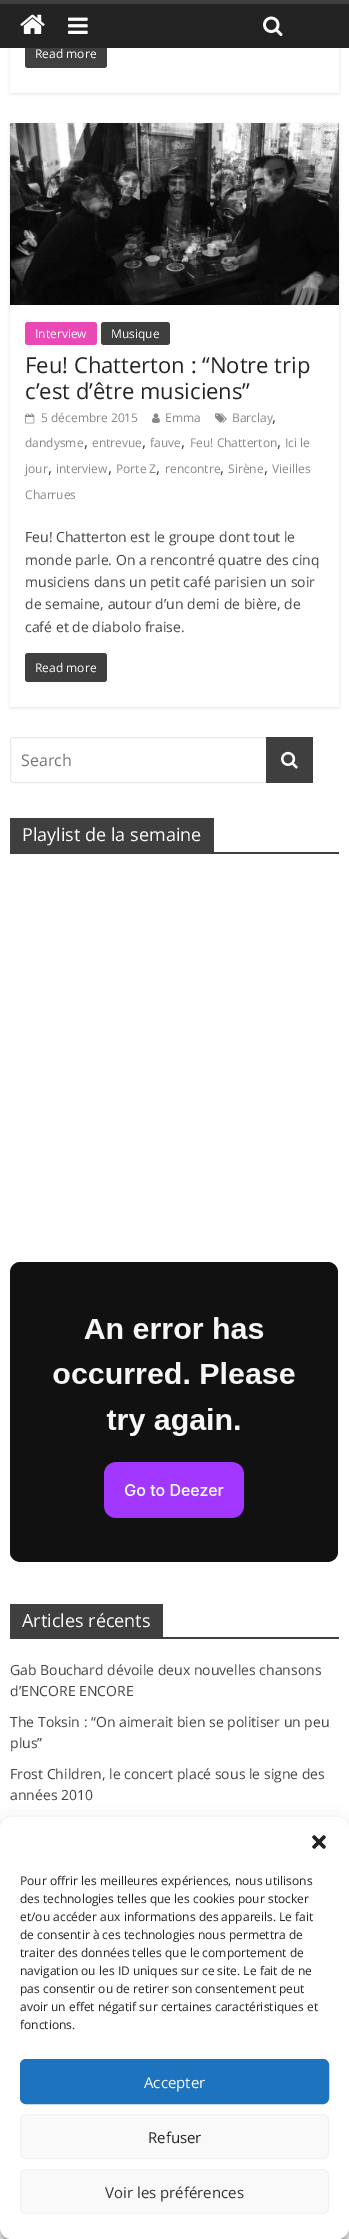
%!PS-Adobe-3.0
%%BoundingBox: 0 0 349 2239
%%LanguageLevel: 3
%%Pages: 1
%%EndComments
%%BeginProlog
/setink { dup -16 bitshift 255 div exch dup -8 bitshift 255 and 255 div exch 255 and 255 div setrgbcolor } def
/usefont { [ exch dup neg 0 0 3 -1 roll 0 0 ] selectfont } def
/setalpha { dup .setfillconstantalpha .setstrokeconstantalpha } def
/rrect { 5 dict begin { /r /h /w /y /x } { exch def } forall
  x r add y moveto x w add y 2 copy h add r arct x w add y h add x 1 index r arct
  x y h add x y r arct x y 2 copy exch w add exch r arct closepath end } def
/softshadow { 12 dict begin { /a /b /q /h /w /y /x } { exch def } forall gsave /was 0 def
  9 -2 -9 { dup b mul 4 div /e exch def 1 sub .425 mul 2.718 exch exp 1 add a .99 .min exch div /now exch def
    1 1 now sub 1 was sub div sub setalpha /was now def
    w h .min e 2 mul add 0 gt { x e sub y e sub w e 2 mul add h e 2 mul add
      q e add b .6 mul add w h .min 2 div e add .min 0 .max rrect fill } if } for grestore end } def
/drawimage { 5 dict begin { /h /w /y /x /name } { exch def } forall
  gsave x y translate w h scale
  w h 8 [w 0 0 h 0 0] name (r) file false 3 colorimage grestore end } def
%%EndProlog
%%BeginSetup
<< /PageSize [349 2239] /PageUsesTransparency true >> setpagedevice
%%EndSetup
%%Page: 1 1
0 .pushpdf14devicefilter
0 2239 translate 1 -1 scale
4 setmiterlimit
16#FFFFFF setink
0 0 349 2239 rectfill
gsave
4 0 moveto 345 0 lineto 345 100 lineto 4 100 lineto closepath 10 -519 moveto 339 -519 lineto 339 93 lineto 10 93 lineto closepath eoclip newpath
16#000000 setink
10 -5 329 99 0 1.5 0.1 softshadow
grestore
16#3F3F3F setink
25 39 82 29 3 rrect fill
16#232323 setink
0 4 349 44 rectfill
16#3F3F3F setink
0 0 349 4 rectfill
(img1.raw) 20 14 25 20 drawimage
(img2.raw) 68 17 20 17 drawimage
(img3.raw) 263 16 20 20 drawimage
/OpenSans-Regular 12 usefont
16#FFFFFF setink
35 58 moveto (Read more) show
gsave
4 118 moveto 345 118 lineto 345 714 lineto 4 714 lineto closepath 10 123 moveto 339 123 lineto 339 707 lineto 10 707 lineto closepath eoclip newpath
16#000000 setink
10 124 329 584 0 1.5 0.1 softshadow
grestore
(img4.raw) 10 123 329 182 drawimage
16#EA48B4 setink
25 322 72 23 3 rrect fill
16#FFFFFF setink
35 338 moveto (Interview) show
16#3F3F3F setink
101 322 69 23 3 rrect fill
16#FFFFFF setink
111 338 moveto (Musique) show
/OpenSans-Regular 22 usefont
16#232323 setink
25 373 moveto (Feu! Chatterton : “Notre trip) show
25 399 moveto (c’est d’être musiciens”) show
(img5.raw) 215 413 12 10 drawimage
/OpenSans-Regular 12 usefont
16#888888 setink
232 422 moveto (Barclay) show
/OpenSans-Regular 16 usefont
16#444444 setink
272 422 moveto (,) show
/OpenSans-Regular 12 usefont
16#888888 setink
25 447 moveto (dandysme) show
/OpenSans-Regular 16 usefont
16#444444 setink
84 447 moveto (,) show
/OpenSans-Regular 12 usefont
16#888888 setink
92 447 moveto (entrevue) show
/OpenSans-Regular 16 usefont
16#444444 setink
142 447 moveto (,) show
/OpenSans-Regular 12 usefont
16#888888 setink
150 447 moveto (fauve) show
/OpenSans-Regular 16 usefont
16#444444 setink
181 447 moveto (,) show
/OpenSans-Regular 12 usefont
16#888888 setink
190 447 moveto (Feu! Chatterton) show
/OpenSans-Regular 16 usefont
16#444444 setink
277 447 moveto (,) show
/OpenSans-Regular 12 usefont
16#888888 setink
285 447 moveto (Ici le) show
25 473 moveto (jour) show
/OpenSans-Regular 16 usefont
16#444444 setink
48 473 moveto (,) show
/OpenSans-Regular 12 usefont
16#888888 setink
56 473 moveto (interview) show
/OpenSans-Regular 16 usefont
16#444444 setink
108 473 moveto (,) show
/OpenSans-Regular 12 usefont
16#888888 setink
116 473 moveto (Porte Z) show
/OpenSans-Regular 16 usefont
16#444444 setink
156 473 moveto (,) show
/OpenSans-Regular 12 usefont
16#888888 setink
165 473 moveto (rencontre) show
/OpenSans-Regular 16 usefont
16#444444 setink
220 473 moveto (,) show
/OpenSans-Regular 12 usefont
16#888888 setink
228 473 moveto (Sirène) show
/OpenSans-Regular 16 usefont
16#444444 setink
264 473 moveto (,) show
/OpenSans-Regular 12 usefont
16#888888 setink
272 473 moveto (Vieilles) show
25 499 moveto (Charrues) show
(img6.raw) 25 413 10 11 drawimage
41 422 moveto (5 décembre 2015) show
(img7.raw) 152 413 8 10 drawimage
165 422 moveto (Emma) show
/OpenSans-Regular 14 usefont
16#444444 setink
[
    [(Feu! Chatterton est le groupe dont tout le) 25 542]
    [(monde parle. On a rencontré quatre des cinq) 25 565]
    [(musiciens dans un petit café parisien un soir) 25 587]
    [(de semaine, autour d’un demi de bière, de) 25 609]
    [(café et de diabolo fraise.) 25 632]
] { aload pop moveto show } forall
16#3F3F3F setink
25 653 82 29 3 rrect fill
/OpenSans-Regular 12 usefont
16#FFFFFF setink
35 672 moveto (Read more) show
16#EAEAEA setink
10.5 737.5 262 45 2.5 rrect stroke
/OpenSans-Regular 16 usefont
16#757575 setink
21 766 moveto (Search) show
16#3F3F3F setink
266 737 47 46 rectfill
(img8.raw) 281 751 17 18 drawimage
10 852 329 2 rectfill
10 818 204 34 rectfill
/OpenSans-Regular 18 usefont
16#FFFFFF setink
22 841 moveto (Playlist de la semaine) show
(img9.raw) 10 1262 328 300 drawimage
16#3F3F3F setink
10 1637 329 2 rectfill
10 1604 153 33 rectfill
16#FFFFFF setink
22 1627 moveto (Articles récents) show
/OpenSans-Regular 14 usefont
16#444444 setink
[
    [(Gab Bouchard dévoile deux nouvelles chansons) 10 1675]
    [(d’ENCORE ENCORE) 10 1696]
    [(The Toksin : “On aimerait bien se politiser un peu) 10 1727]
    [(plus”) 10 1748]
    [(Frost Children, le concert placé sous le signe des) 10 1779]
    [(années 2010) 10 1800]
] { aload pop moveto show } forall
16#000000 setink
0 1823 349 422 12 3 0.23 softshadow
0 1827 349 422 12 10 0.19 softshadow
16#FFFFFF setink
0 1817 349 422 12 rrect fill
(img10.raw) 312 1835 14 14 drawimage
/OpenSans-Regular 12 usefont
16#232323 setink
[
    [(Pour offrir les meilleures expériences, nous utilisons) 20 1885]
    [(des technologies telles que les cookies pour stocker) 20 1903]
    [(et/ou accéder aux informations des appareils. Le fait) 20 1921]
    [(de consentir à ces technologies nous permettra de) 20 1939]
    [(traiter des données telles que le comportement de) 20 1957]
    [(navigation ou les ID uniques sur ce site. Le fait de ne) 20 1975]
    [(pas consentir ou de retirer son consentement peut) 20 1993]
    [(avoir un effet négatif sur certaines caractéristiques et) 20 2011]
    [(fonctions.) 20 2029]
] { aload pop moveto show } forall
16#1E73BE setink
20.5 2059.5 308 44 5.5 rrect gsave fill grestore
stroke
/OpenSans-Regular 15 usefont
16#FFFFFF setink
144 2088 moveto (Accepter) show
16#F9F9F9 setink
20.5 2114.5 308 44 5.5 rrect gsave fill grestore
16#F2F2F2 setink
stroke
16#232323 setink
148 2143 moveto (Refuser) show
16#F9F9F9 setink
20.5 2169.5 308 44 5.5 rrect gsave fill grestore
16#F2F2F2 setink
stroke
16#333333 setink
105 2198 moveto (Voir les préférences) show
.poppdf14devicefilter showpage
%%EOF
